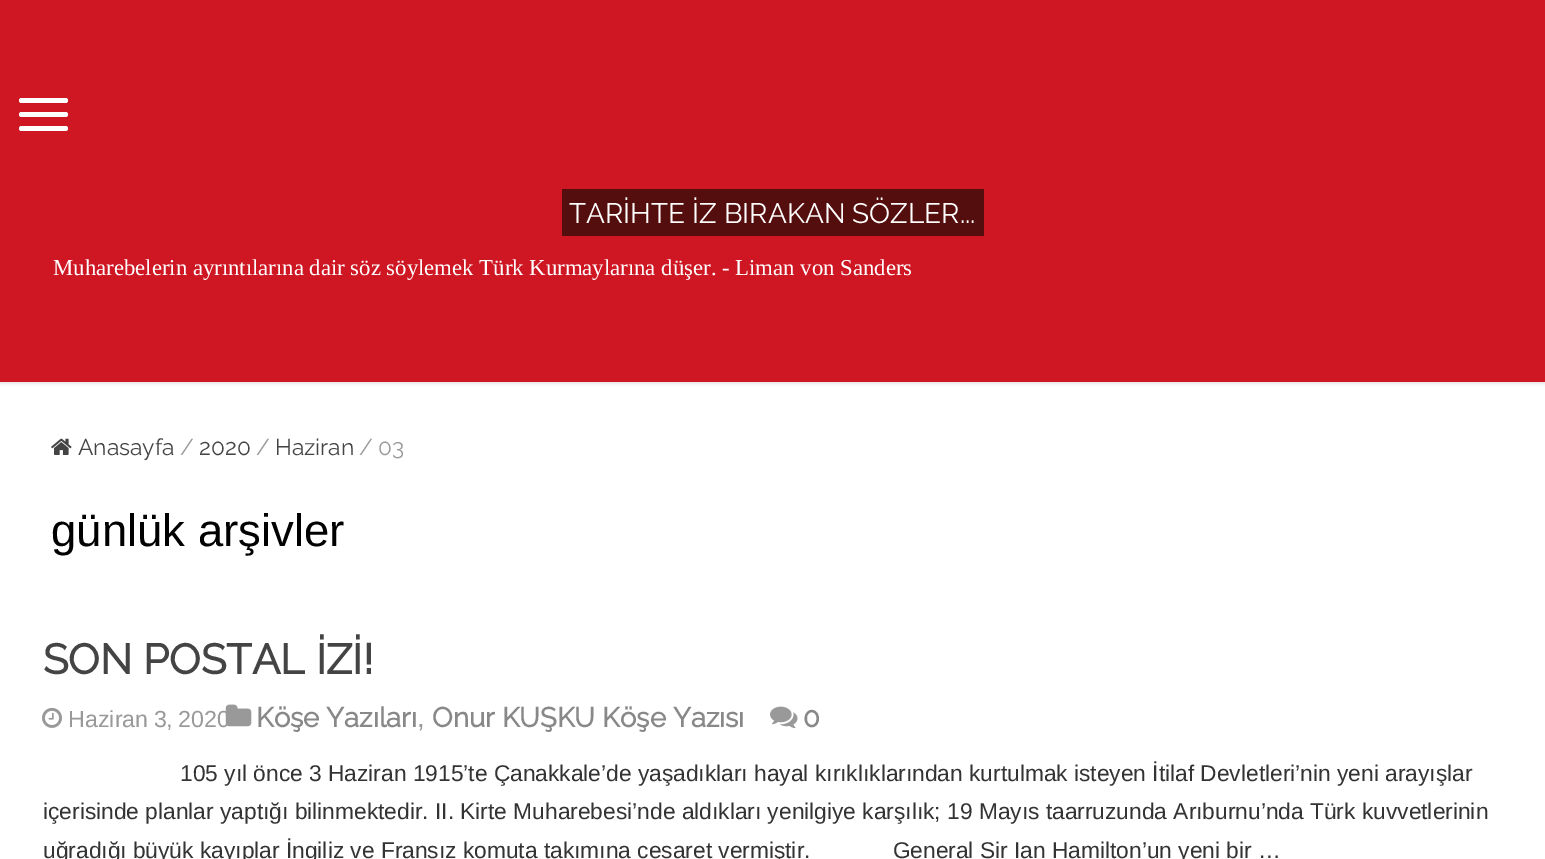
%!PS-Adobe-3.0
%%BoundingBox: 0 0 1545 859
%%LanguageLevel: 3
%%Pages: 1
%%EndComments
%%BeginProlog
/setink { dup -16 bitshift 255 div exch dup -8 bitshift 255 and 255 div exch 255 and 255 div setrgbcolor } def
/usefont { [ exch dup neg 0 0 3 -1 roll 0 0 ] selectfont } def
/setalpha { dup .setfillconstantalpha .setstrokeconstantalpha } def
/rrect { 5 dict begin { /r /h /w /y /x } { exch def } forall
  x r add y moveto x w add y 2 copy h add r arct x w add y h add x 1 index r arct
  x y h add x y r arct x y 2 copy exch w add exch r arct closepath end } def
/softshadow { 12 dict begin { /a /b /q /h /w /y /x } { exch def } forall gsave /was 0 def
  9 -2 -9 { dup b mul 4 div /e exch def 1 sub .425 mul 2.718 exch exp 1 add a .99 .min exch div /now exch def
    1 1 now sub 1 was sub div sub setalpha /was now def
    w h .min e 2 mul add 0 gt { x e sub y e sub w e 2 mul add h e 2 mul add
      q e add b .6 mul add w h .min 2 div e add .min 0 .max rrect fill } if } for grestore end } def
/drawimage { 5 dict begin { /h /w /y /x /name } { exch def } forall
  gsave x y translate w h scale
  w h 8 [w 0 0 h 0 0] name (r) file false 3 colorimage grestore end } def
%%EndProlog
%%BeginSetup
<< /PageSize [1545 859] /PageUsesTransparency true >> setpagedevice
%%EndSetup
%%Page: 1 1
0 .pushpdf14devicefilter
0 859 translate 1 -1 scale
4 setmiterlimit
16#FFFFFF setink
0 0 1545 859 rectfill
16#CACACA setink
0 0 1545 382 0 2.5 1 softshadow
16#CF1724 setink
0 0 1545 382 rectfill
16#FFFFFF setink
19 98 49 5 2.5 rrect fill
19 112 49 5 2.5 rrect fill
19 126 49 5 2.5 rrect fill
16#540E0D setink
562 189 422 47 rectfill
/Raleway-Thin 28 usefont
16#FFFFFF setink
569 223 moveto (TARİHTE İZ BIRAKAN SÖZLER...) show
/LiberationSerif-Regular 22.75 usefont
53 275 moveto (Muharebelerin ayrıntılarına dair söz söylemek Türk Kurmaylarına düşer. - Liman von Sanders) show
(img1.raw) 51 438 21 17 drawimage
/Raleway-Thin 22.75 usefont
16#444444 setink
78 455 moveto (Anasayfa) show
16#999999 setink
180 455 moveto (/) show
16#444444 setink
199 455 moveto (2020) show
16#999999 setink
256 455 moveto (/) show
16#444444 setink
275 455 moveto (Haziran) show
16#999999 setink
359 455 moveto (/) show
378 455 moveto (03) show
16#FFFFFF setink
145 460 2 1 rectfill
/LiberationSans-Regular 45.5 usefont
16#000000 setink
51 546 moveto (günlük arşivler) show
/Raleway-Bold 42 usefont
16#444444 setink
43 674 moveto (SON POSTAL İZİ!) show
(img2.raw) 42 707 20 21 drawimage
/LiberationSans-Regular 23.25 usefont
16#999999 setink
68 727 moveto -1 0 32 (Haziran 3, 2020) widthshow
(img3.raw) 225 704 27 23 drawimage
/Raleway-Bold 27.5 usefont
16#888888 setink
256 727 moveto (Köşe Yazıları) show
/LiberationSans-Regular 27.5 usefont
16#999999 setink
417 727 moveto (,) show
/Raleway-Bold 27.5 usefont
16#888888 setink
432 727 moveto (Onur KUŞKU Köşe Yazısı) show
(img4.raw) 770 706 28 23 drawimage
803 727 moveto (0) show
/LiberationSans-Regular 22.75 usefont
16#333333 setink
[
    [(105 yıl önce 3 Haziran 1915’te Çanakkale’de yaşadıkları hayal kırıklıklarından kurtulmak isteyen İtilaf Devletleri’nin yeni arayışlar) 180 781]
    [(içerisinde planlar yaptığı bilinmektedir. II. Kirte Muharebesi’nde aldıkları yenilgiye karşılık; 19 Mayıs taarruzunda Arıburnu’nda Türk kuvvetlerinin) 43 819]
    [(uğradığı büyük kayıplar İngiliz ve Fransız komuta takımına cesaret vermiştir.             General Sir Ian Hamilton’un yeni bir …) 43 858]
] { aload pop moveto show } forall
.poppdf14devicefilter showpage
%%EOF
